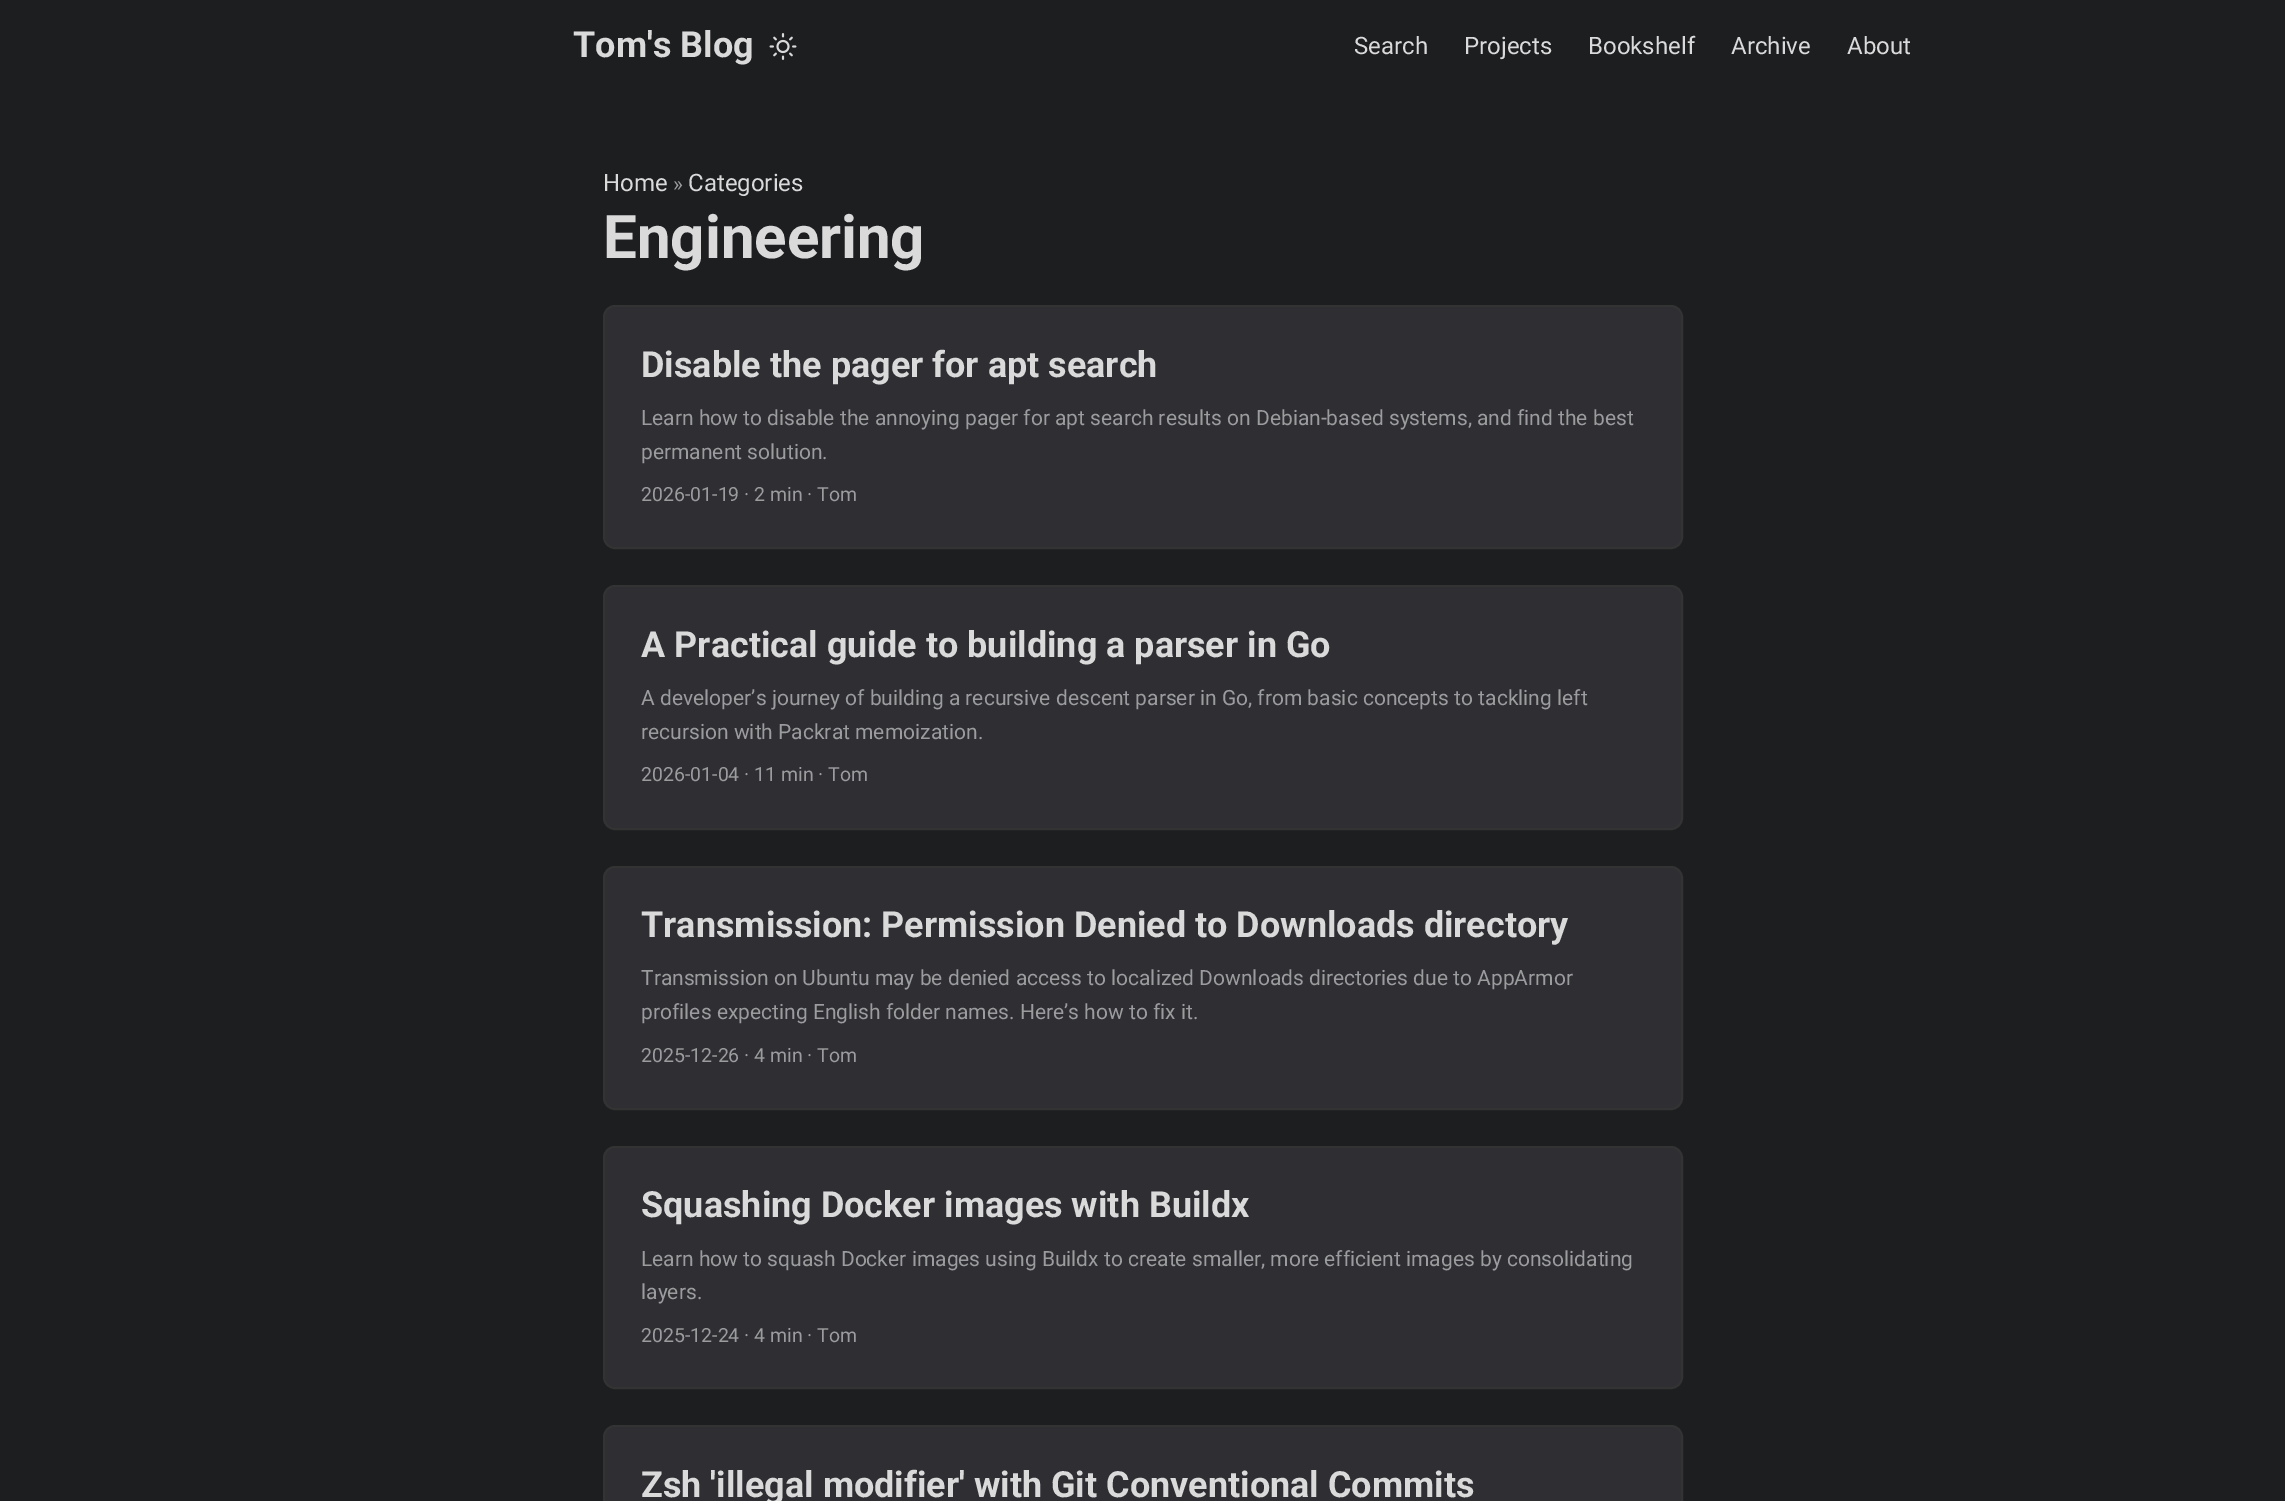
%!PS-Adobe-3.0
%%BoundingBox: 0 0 2285 1501
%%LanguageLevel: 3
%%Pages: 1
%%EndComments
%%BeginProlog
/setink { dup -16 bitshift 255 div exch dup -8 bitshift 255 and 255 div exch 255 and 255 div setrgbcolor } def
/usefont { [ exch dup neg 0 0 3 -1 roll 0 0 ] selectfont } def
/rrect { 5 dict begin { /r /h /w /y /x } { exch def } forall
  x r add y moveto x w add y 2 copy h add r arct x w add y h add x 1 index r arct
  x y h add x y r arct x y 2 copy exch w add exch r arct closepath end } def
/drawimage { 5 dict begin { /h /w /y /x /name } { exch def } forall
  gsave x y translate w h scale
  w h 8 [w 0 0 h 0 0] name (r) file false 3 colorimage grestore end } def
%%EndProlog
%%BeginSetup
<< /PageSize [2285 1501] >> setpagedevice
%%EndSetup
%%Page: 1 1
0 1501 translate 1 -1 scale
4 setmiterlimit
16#1D1E20 setink
0 0 2285 1501 rectfill
/Roboto-Bold 36 usefont
16#DADADB setink
573 57 moveto (Tom's Blog) show
(img1.raw) 769 33 28 27 drawimage
/Roboto-Regular 24 usefont
[
    [(Search) 1354 54]
    [(Projects) 1464 54]
    [(Bookshelf) 1588 54]
    [(Archive) 1731 54]
    [(About) 1847 54]
    [(Home) 603 191]
] { aload pop moveto show } forall
/Roboto-Regular 21 usefont
16#9B9C9D setink
673 191 moveto (») show
/Roboto-Regular 24 usefont
16#DADADB setink
688 191 moveto (Categories) show
/Roboto-Bold 60 usefont
603 258 moveto (Engineering) show
16#2E2E33 setink
604 306 1078 242 11 rrect gsave fill grestore
16#333333 setink
2 setlinewidth
stroke
/Roboto-Bold 36 usefont
16#DADADB setink
641 377 moveto (Disable the pager for apt search) show
/Roboto-Regular 21 usefont
16#9B9C9D setink
641 425 moveto (Learn how to disable the annoying pager for apt search results on Debian-based systems, and find the best) show
641 459 moveto (permanent solution.) show
/Roboto-Regular 19.5 usefont
641 501 moveto (2026-01-19 · 2 min · Tom) show
16#2E2E33 setink
604 586 1078 243 11 rrect gsave fill grestore
16#333333 setink
stroke
/Roboto-Bold 36 usefont
16#DADADB setink
641 657 moveto (A Practical guide to building a parser in Go) show
/Roboto-Regular 21 usefont
16#9B9C9D setink
641 705 moveto (A developer’s journey of building a recursive descent parser in Go, from basic concepts to tackling left) show
641 739 moveto (recursion with Packrat memoization.) show
/Roboto-Regular 19.5 usefont
641 781 moveto (2026-01-04 · 11 min · Tom) show
16#2E2E33 setink
604 867 1078 242 11 rrect gsave fill grestore
16#333333 setink
stroke
/Roboto-Bold 36 usefont
16#DADADB setink
641 937 moveto (Transmission: Permission Denied to Downloads directory) show
/Roboto-Regular 21 usefont
16#9B9C9D setink
641 985 moveto (Transmission on Ubuntu may be denied access to localized Downloads directories due to AppArmor) show
641 1019 moveto (profiles expecting English folder names. Here’s how to fix it.) show
/Roboto-Regular 19.5 usefont
641 1062 moveto (2025-12-26 · 4 min · Tom) show
16#2E2E33 setink
604 1147 1078 241 11 rrect gsave fill grestore
16#333333 setink
stroke
/Roboto-Bold 36 usefont
16#DADADB setink
641 1217 moveto (Squashing Docker images with Buildx) show
/Roboto-Regular 21 usefont
16#9B9C9D setink
641 1266 moveto (Learn how to squash Docker images using Buildx to create smaller, more efficient images by consolidating) show
641 1299 moveto (layers.) show
/Roboto-Regular 19.5 usefont
641 1342 moveto (2025-12-24 · 4 min · Tom) show
16#2E2E33 setink
604 1426 1078 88 11 rrect gsave fill grestore
16#333333 setink
stroke
/Roboto-Bold 36 usefont
16#DADADB setink
641 1497 moveto (Zsh 'illegal modifier' with Git Conventional Commits) show
showpage
%%EOF
